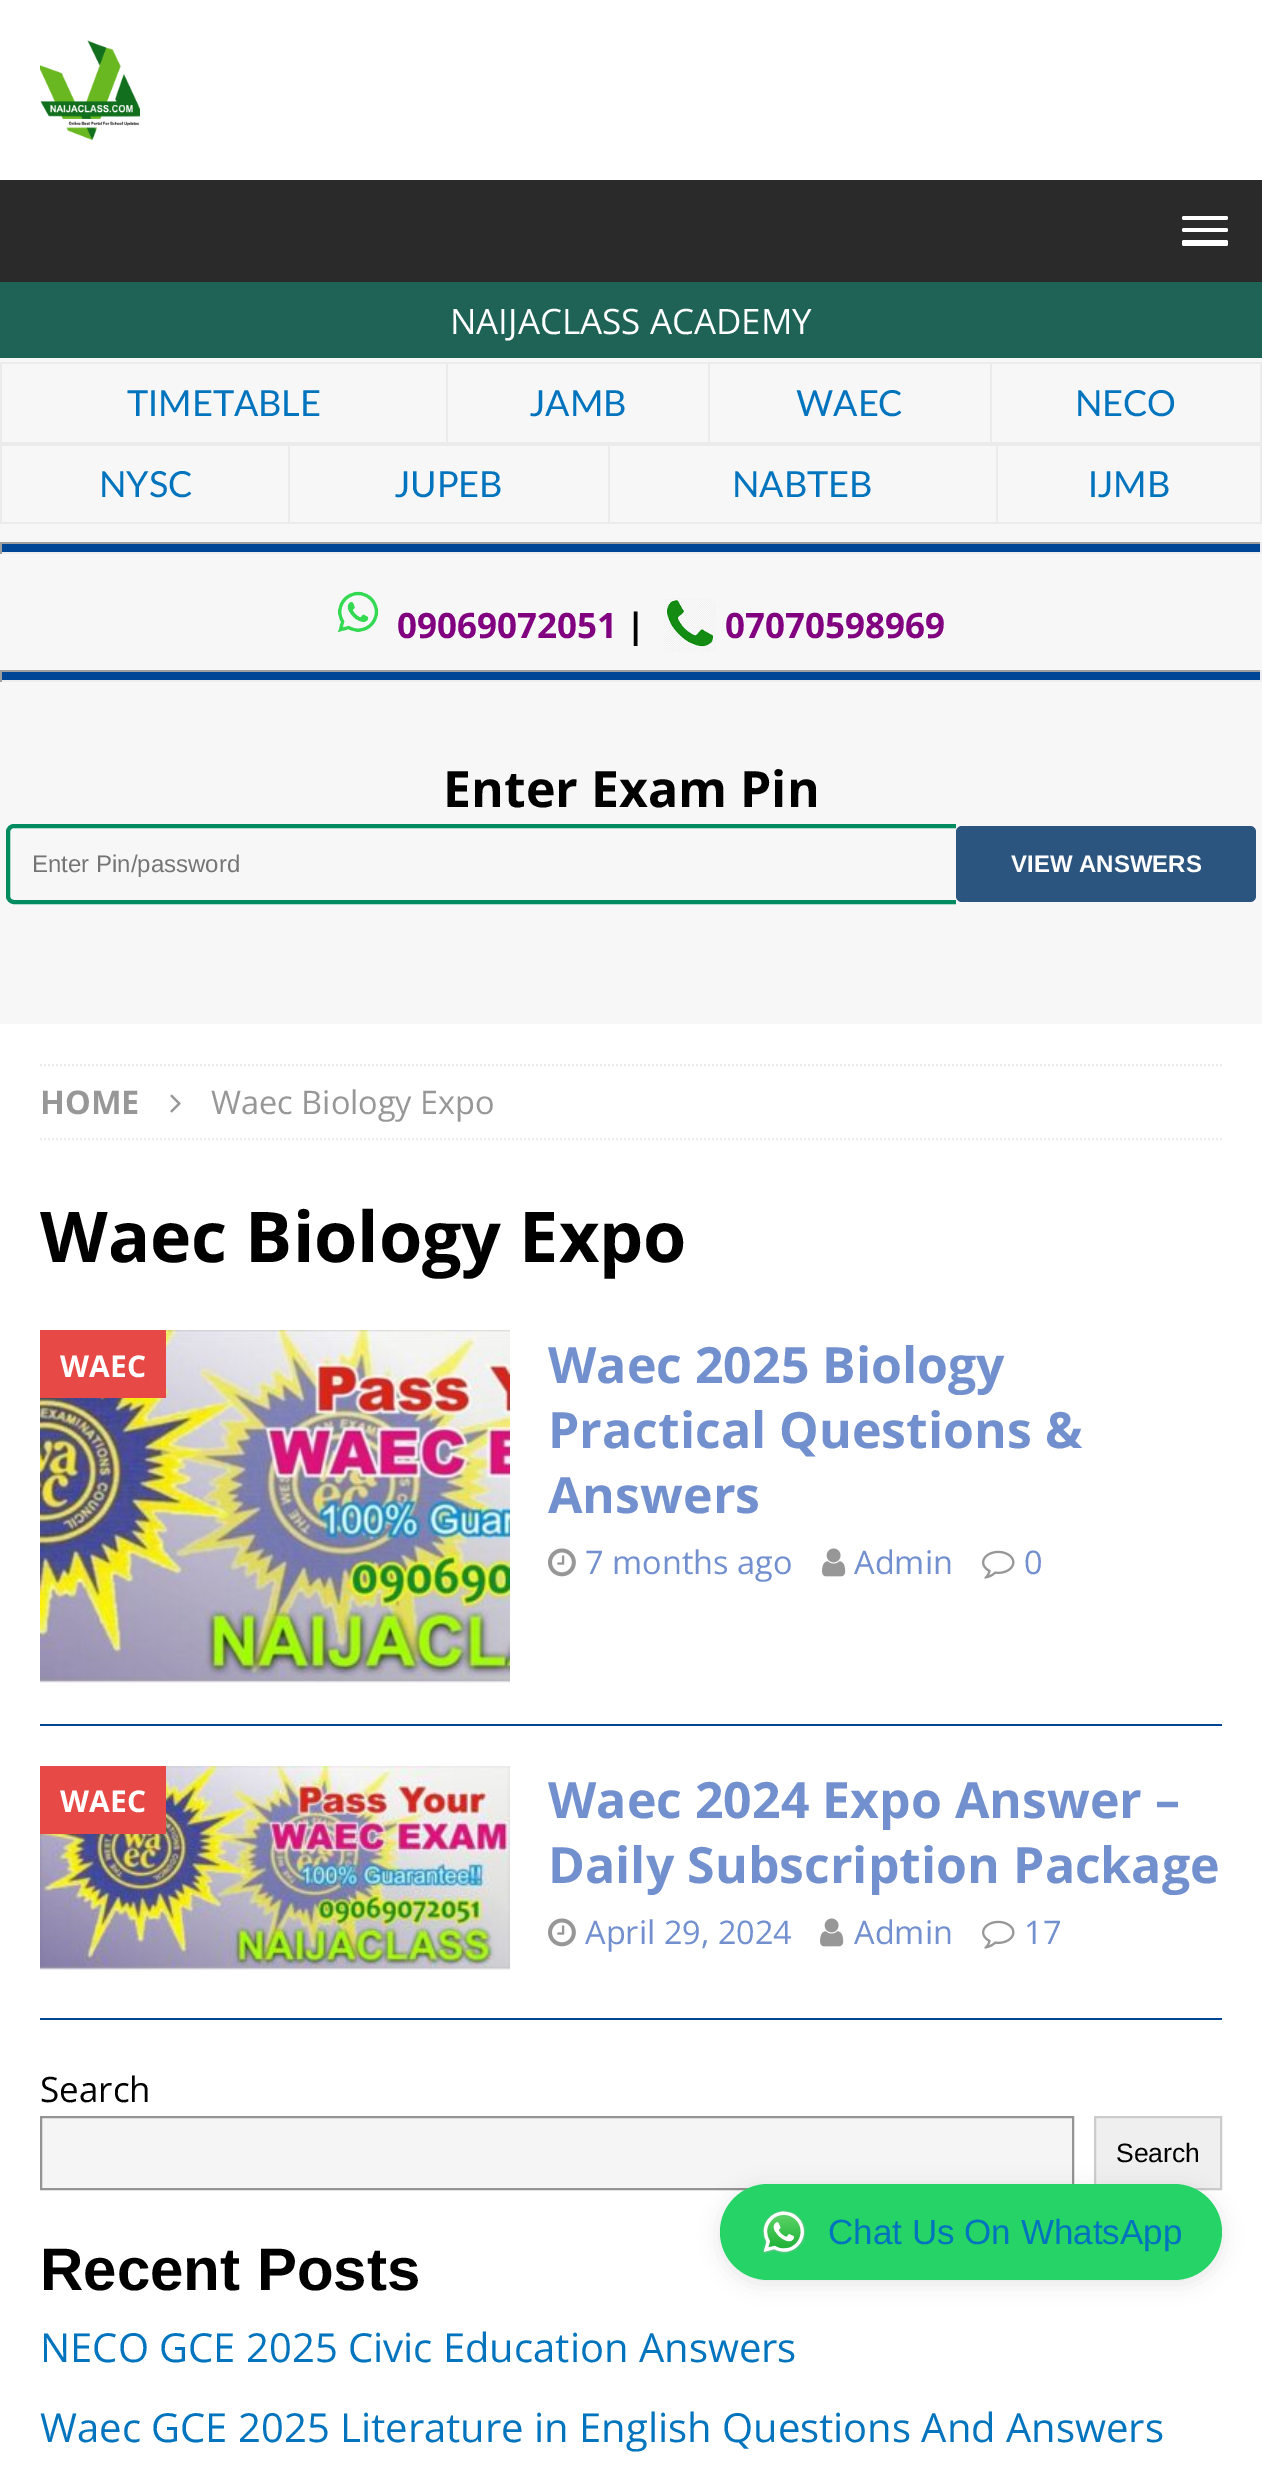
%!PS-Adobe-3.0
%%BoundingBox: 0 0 1262 2470
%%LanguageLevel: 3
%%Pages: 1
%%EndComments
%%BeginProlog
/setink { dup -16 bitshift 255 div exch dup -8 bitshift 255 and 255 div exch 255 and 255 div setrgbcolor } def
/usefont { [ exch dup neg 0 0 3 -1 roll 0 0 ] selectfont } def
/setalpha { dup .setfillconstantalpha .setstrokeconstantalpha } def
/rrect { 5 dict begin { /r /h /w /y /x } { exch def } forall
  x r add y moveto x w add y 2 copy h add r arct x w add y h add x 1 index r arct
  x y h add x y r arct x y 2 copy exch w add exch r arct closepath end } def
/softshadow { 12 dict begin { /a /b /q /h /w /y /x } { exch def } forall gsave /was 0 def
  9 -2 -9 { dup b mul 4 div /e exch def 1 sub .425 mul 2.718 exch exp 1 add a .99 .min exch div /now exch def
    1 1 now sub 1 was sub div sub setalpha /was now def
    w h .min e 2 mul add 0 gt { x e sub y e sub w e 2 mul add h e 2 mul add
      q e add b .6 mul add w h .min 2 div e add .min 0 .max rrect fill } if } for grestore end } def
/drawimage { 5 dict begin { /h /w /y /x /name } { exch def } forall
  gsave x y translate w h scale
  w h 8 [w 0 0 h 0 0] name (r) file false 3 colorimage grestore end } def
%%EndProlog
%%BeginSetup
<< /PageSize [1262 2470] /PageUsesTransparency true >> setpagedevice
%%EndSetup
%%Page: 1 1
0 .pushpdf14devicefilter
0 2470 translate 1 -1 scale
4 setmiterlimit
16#F7F7F7 setink
0 0 1262 2470 rectfill
16#FFFFFF setink
0 0 1262 180 rectfill
(img1.raw) 40 40 100 100 drawimage
16#2A2A2A setink
0 180 1262 102 rectfill
16#FFFFFF setink
1182 216 46 4 2 rrect fill
1182 228 46 4 2 rrect fill
1182 240 46 6 2 rrect fill
16#1F6357 setink
0 282 1262 76 rectfill
/OpenSans-Regular 35 usefont
16#FFFFFF setink
450 334 moveto (NAIJACLASS ACADEMY) show
[
    [0 362 1262 2 16#EBEBEB]
    [0 362 2 82 16#EBEBEB]
    [1260 362 2 82 16#EBEBEB]
    [990 442 272 2 16#EBEBEB]
    [990 362 2 82 16#EBEBEB]
    [708 442 284 2 16#EBEBEB]
    [708 362 2 82 16#EBEBEB]
    [446 442 264 2 16#EBEBEB]
    [446 362 2 82 16#EBEBEB]
    [0 442 448 2 16#EBEBEB]
] { aload pop setink rectfill } forall
/Lato-Regular 36 usefont
16#0274BE setink
[
    [(TIMETABLE) 127 416]
    [(JAMB) 530 416]
    [(WAEC) 796 416]
    [(NECO) 1075 416]
] { aload pop moveto show } forall
[
    [0 444 1262 2 16#EBEBEB]
    [0 444 2 80 16#EBEBEB]
    [1260 444 2 80 16#EBEBEB]
    [996 522 266 2 16#EBEBEB]
    [996 444 2 80 16#EBEBEB]
    [608 522 390 2 16#EBEBEB]
    [608 444 2 80 16#EBEBEB]
    [288 522 322 2 16#EBEBEB]
    [288 444 2 80 16#EBEBEB]
    [0 522 290 2 16#EBEBEB]
] { aload pop setink rectfill } forall
16#0274BE setink
[
    [(NYSC) 99 497]
    [(JUPEB) 395 497]
    [(NABTEB) 732 497]
    [(IJMB) 1088 497]
] { aload pop moveto show } forall
[
    [2 544 1258 8 16#004696]
    [0 542 1262 2 16#9F9F9F]
    [1260 542 2 12 16#EEEEEE]
    [0 552 1262 2 16#EEEEEE]
    [0 542 2 12 16#9F9F9F]
] { aload pop setink rectfill } forall
(img2.raw) 337 591 42 42 drawimage
/OpenSans-Bold 35 usefont
16#800080 setink
397 638 moveto (09069072051) show
16#000000 setink
626 638 moveto (|) show
(img3.raw) 664 598 52 54 drawimage
16#800080 setink
725 638 moveto (07070598969) show
[
    [2 672 1258 8 16#004696]
    [0 670 1262 2 16#9F9F9F]
    [1260 670 2 12 16#EEEEEE]
    [0 680 1262 2 16#EEEEEE]
    [0 670 2 12 16#9F9F9F]
] { aload pop setink rectfill } forall
/OpenSans-Bold 50 usefont
16#000000 setink
443 807 moveto (Enter Exam Pin) show
16#2B547E setink
956 826 300 76 6 rrect fill
gsave
6 820 950 92 rectclip
16#008C5F setink
4 setlinewidth
8 826 1202 76 6 rrect stroke
grestore
/LiberationSans-Regular 24 usefont
16#757575 setink
32 872 moveto (Enter Pin/password) show
/LiberationSans-Bold 24 usefont
16#FFFFFF setink
1011 872 moveto (VIEW ANSWERS) show
0 1024 1262 1446 rectfill
16#EBEBEB setink
2 setlinewidth
[2 2] 0 setdash
40 1065 moveto 1222 1065 lineto stroke
40 1139 moveto 1222 1139 lineto stroke
/OpenSans-Bold 32.5 usefont
16#979797 setink
40 1114 moveto (HOME) show
(img4.raw) 170 1094 11 19 drawimage
/OpenSans-Regular 32.5 usefont
211 1114 moveto (Waec Biology Expo) show
/OpenSans-Bold 70 usefont
16#000000 setink
40 1262 moveto (Waec Biology Expo) show
16#004696 setink
40 1724 1182 2 rectfill
(img5.raw) 40 1330 470 353 drawimage
16#E64946 setink
40 1330 126 68 rectfill
/OpenSans-Bold 30 usefont
16#FFFFFF setink
60 1377 moveto (WAEC) show
/OpenSans-Bold 50 usefont
16#728FCE setink
[
    [(Waec 2025 Biology) 548 1383]
    [(Practical Questions &) 548 1448]
    [(Answers) 548 1513]
] { aload pop moveto show } forall
(img6.raw) 548 1548 28 29 drawimage
/OpenSans-Regular 32.5 usefont
585 1574 moveto (7 months ago) show
(img7.raw) 822 1548 24 29 drawimage
854 1574 moveto (Admin) show
(img8.raw) 982 1550 33 29 drawimage
1024 1574 moveto (0) show
16#004696 setink
40 2018 1182 2 rectfill
(img9.raw) 40 1766 470 204 drawimage
16#E64946 setink
40 1766 126 68 rectfill
/OpenSans-Bold 30 usefont
16#FFFFFF setink
60 1812 moveto (WAEC) show
/OpenSans-Bold 50 usefont
16#728FCE setink
548 1818 moveto (Waec 2024 Expo Answer –) show
548 1883 moveto (Daily Subscription Package) show
(img6.raw) 548 1918 28 29 drawimage
/OpenSans-Regular 32.5 usefont
585 1944 moveto (April 29, 2024) show
(img7.raw) 820 1918 24 29 drawimage
854 1944 moveto (Admin) show
(img8.raw) 982 1920 33 29 drawimage
1024 1944 moveto (17) show
/OpenSans-Regular 35 usefont
16#000000 setink
40 2102 moveto (Search) show
16#F5F5F5 setink
41 2117 moveto 1073 2117 lineto 1073 2189 lineto 41 2189 lineto closepath gsave fill grestore
16#949494 setink
[] 0 setdash
stroke
16#EFEFEF setink
1095 2117 moveto 1221 2117 lineto 1221 2189 lineto 1095 2189 lineto closepath gsave fill grestore
16#CCCCCC setink
stroke
/LiberationSans-Regular 26.5 usefont
16#000000 setink
1116 2162 moveto (Search) show
/LiberationSans-Bold 60 usefont
40 2290 moveto (Recent Posts) show
/OpenSans-Regular 40 usefont
16#0274BE setink
40 2362 moveto (NECO GCE 2025 Civic Education Answers) show
40 2442 moveto (Waec GCE 2025 Literature in English Questions And Answers) show
16#000000 setink
720 2188 502 96 48 10 0.1 softshadow
16#25D366 setink
720 2184 502 96 48 rrect fill
(img10.raw) 762 2210 44 44 drawimage
/LiberationSans-Regular 35 usefont
16#0274BE setink
828 2244 moveto (Chat Us On WhatsApp) show
.poppdf14devicefilter showpage
%%EOF
